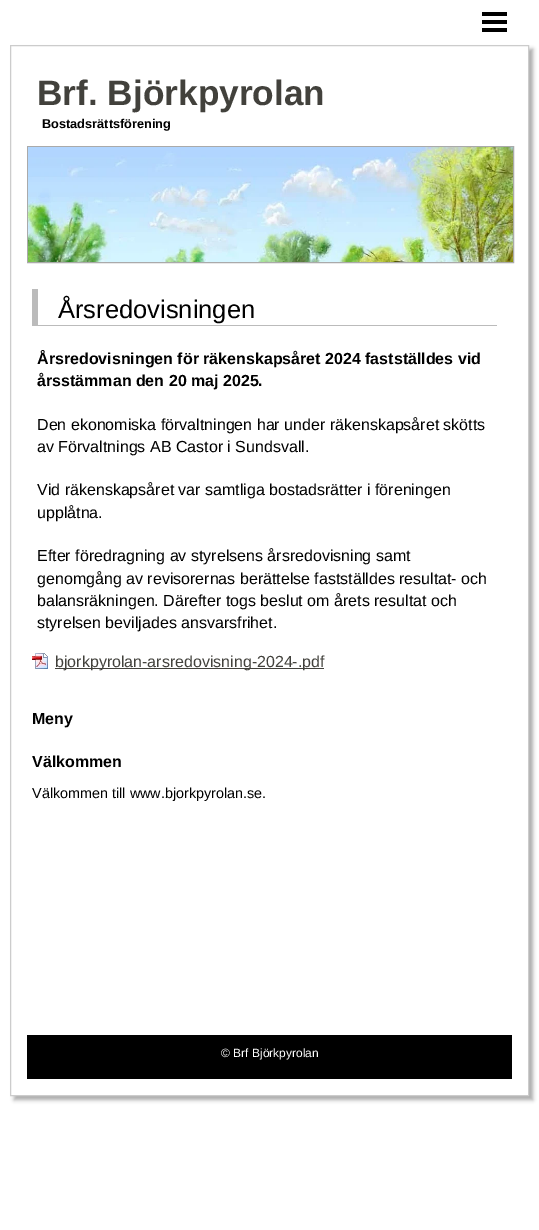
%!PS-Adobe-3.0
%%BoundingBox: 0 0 539 1230
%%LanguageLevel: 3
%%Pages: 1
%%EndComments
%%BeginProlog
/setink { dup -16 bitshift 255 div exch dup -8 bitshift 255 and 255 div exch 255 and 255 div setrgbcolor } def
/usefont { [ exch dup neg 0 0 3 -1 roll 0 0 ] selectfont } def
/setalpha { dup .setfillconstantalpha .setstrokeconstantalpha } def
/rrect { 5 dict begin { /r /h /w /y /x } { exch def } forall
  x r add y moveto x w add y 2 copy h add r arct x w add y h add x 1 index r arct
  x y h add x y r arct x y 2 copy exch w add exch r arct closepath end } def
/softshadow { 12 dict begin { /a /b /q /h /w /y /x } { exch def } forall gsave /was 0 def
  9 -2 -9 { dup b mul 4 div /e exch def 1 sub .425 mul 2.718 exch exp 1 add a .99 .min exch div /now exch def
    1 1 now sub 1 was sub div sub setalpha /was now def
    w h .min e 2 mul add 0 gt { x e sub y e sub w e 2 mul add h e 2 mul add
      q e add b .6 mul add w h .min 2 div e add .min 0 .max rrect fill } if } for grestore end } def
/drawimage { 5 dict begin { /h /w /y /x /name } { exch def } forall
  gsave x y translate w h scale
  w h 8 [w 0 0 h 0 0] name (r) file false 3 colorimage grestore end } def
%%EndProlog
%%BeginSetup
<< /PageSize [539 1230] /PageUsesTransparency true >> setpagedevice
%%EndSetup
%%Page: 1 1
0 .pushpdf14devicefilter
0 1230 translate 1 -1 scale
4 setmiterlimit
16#FFFFFF setink
0 0 539 1230 rectfill
16#000000 setink
482 12 25 20 rectfill
(img1.raw) 464 4 60 36 drawimage
gsave
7 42 moveto 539 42 lineto 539 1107 lineto 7 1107 lineto closepath 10 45 moveto 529 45 lineto 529 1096 lineto 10 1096 lineto closepath eoclip newpath
16#AAAAAA setink
14 49 519 1051 0 2 1 softshadow
grestore
16#CCCCCC setink
10.5 45.5 518 1050 rectstroke
/LiberationSans-Bold 35.25 usefont
16#42413C setink
37 105 moveto (Brf. Björkpyrolan) show
/LiberationSans-Bold 12.75 usefont
16#000000 setink
42 128 moveto (Bostadsrättsförening) show
16#AAAAAA setink
27.5 146.5 486 116 rectstroke
(img2.raw) 28 147 485 115 drawimage
16#BBBBBB setink
32 325 465 1 rectfill
32 289 6 37 rectfill
/LiberationSans-Regular 25.5 usefont
16#000000 setink
58 318 moveto (Årsredovisningen) show
/LiberationSans-Bold 16 usefont
37 364 moveto (Årsredovisningen för räkenskapsåret 2024 fastställdes vid) show
37 386 moveto (årsstämman den 20 maj 2025.) show
/LiberationSans-Regular 16 usefont
[
    [(Den ekonomiska förvaltningen har under räkenskapsåret skötts) 37 430]
    [(av Förvaltnings AB Castor i Sundsvall.) 37 452]
    [(Vid räkenskapsåret var samtliga bostadsrätter i föreningen) 37 495]
    [(upplåtna.) 37 518]
    [(Efter föredragning av styrelsens årsredovisning samt) 37 561]
    [(genomgång av revisorernas berättelse fastställdes resultat- och) 37 584]
    [(balansräkningen. Därefter togs beslut om årets resultat och) 37 606]
    [(styrelsen beviljades ansvarsfrihet.) 37 628]
] { aload pop moveto show } forall
(img3.raw) 32 653 16 16 drawimage
16#42413C setink
55 668 269 1 rectfill
55 667 moveto (bjorkpyrolan-arsredovisning-2024-.pdf) show
/LiberationSans-Bold 16 usefont
16#000000 setink
32 724 moveto (Meny) show
32 767 moveto (Välkommen) show
/LiberationSans-Regular 14.4 usefont
32 798 moveto (Välkommen till www.bjorkpyrolan.se.) show
27 1035 485 44 rectfill
/LiberationSans-Regular 12 usefont
16#FFFFFF setink
221 1057 moveto (© Brf Björkpyrolan) show
.poppdf14devicefilter showpage
%%EOF
